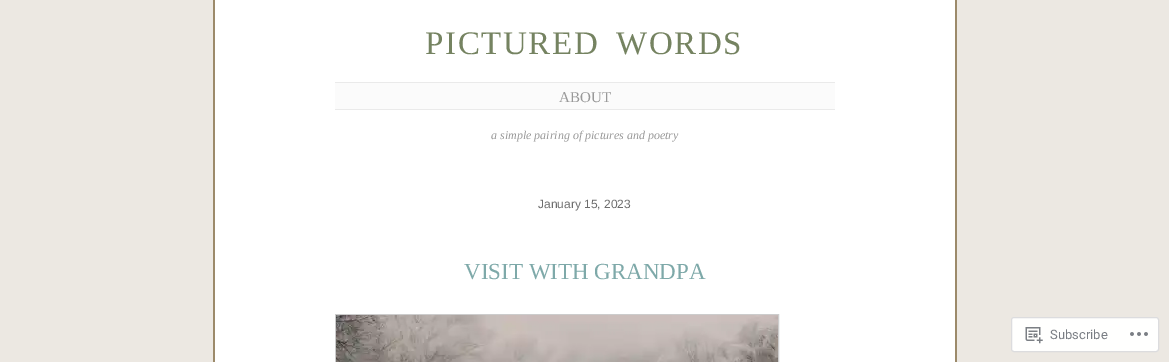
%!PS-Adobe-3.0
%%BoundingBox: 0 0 1169 362
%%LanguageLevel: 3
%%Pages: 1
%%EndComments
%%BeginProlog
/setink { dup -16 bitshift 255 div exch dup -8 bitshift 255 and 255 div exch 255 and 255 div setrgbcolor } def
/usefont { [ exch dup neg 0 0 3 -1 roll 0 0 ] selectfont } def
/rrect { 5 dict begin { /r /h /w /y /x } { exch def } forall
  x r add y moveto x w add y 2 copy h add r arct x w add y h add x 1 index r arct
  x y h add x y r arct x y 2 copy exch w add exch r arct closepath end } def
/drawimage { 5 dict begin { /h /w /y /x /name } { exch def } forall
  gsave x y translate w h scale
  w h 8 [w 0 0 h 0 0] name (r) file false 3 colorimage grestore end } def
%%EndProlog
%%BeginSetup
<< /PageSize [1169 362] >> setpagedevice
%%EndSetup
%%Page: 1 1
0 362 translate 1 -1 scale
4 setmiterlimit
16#ECE8E2 setink
0 0 1169 362 rectfill
[
    [215 0 740 362 16#FFFFFF]
    [955 0 2 362 16#9C8A6A]
    [213 0 2 362 16#9C8A6A]
] { aload pop setink rectfill } forall
/LiberationSerif-Regular 33 usefont
16#758361 setink
425 54 moveto 7 0 32 1.6 0 (PICTURED WORDS) awidthshow
[
    [335 83 500 26 16#FBFBFB]
    [335 82 500 1 16#EAEAEA]
    [335 109 500 1 16#EAEAEA]
] { aload pop setink rectfill } forall
/LiberationSerif-Regular 15 usefont
16#999999 setink
559 102 moveto (ABOUT) show
/LiberationSerif-Italic 12 usefont
491 139 moveto (a simple pairing of pictures and poetry) show
/LiberationSans-Regular 12 usefont
16#6D6D6D setink
538 208 moveto (January 15, 2023) show
/LiberationSerif-Regular 23 usefont
16#7EA9A9 setink
464 279 moveto (VISIT WITH GRANDPA) show
16#CCCCCC setink
335.5 314.5 443 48 rectstroke
(img1.raw) 336 315 442 47 drawimage
16#FFFFFE setink
1011.5 317.5 147 34 2.5 rrect gsave fill grestore
16#DCDCDE setink
stroke
(img2.raw) 1025 327 18 17 drawimage
/Roboto-Regular 13 usefont
16#7A7E84 setink
1050 339 moveto (Subscribe) show
(img3.raw) 1130 332 18 4 drawimage
showpage
%%EOF
